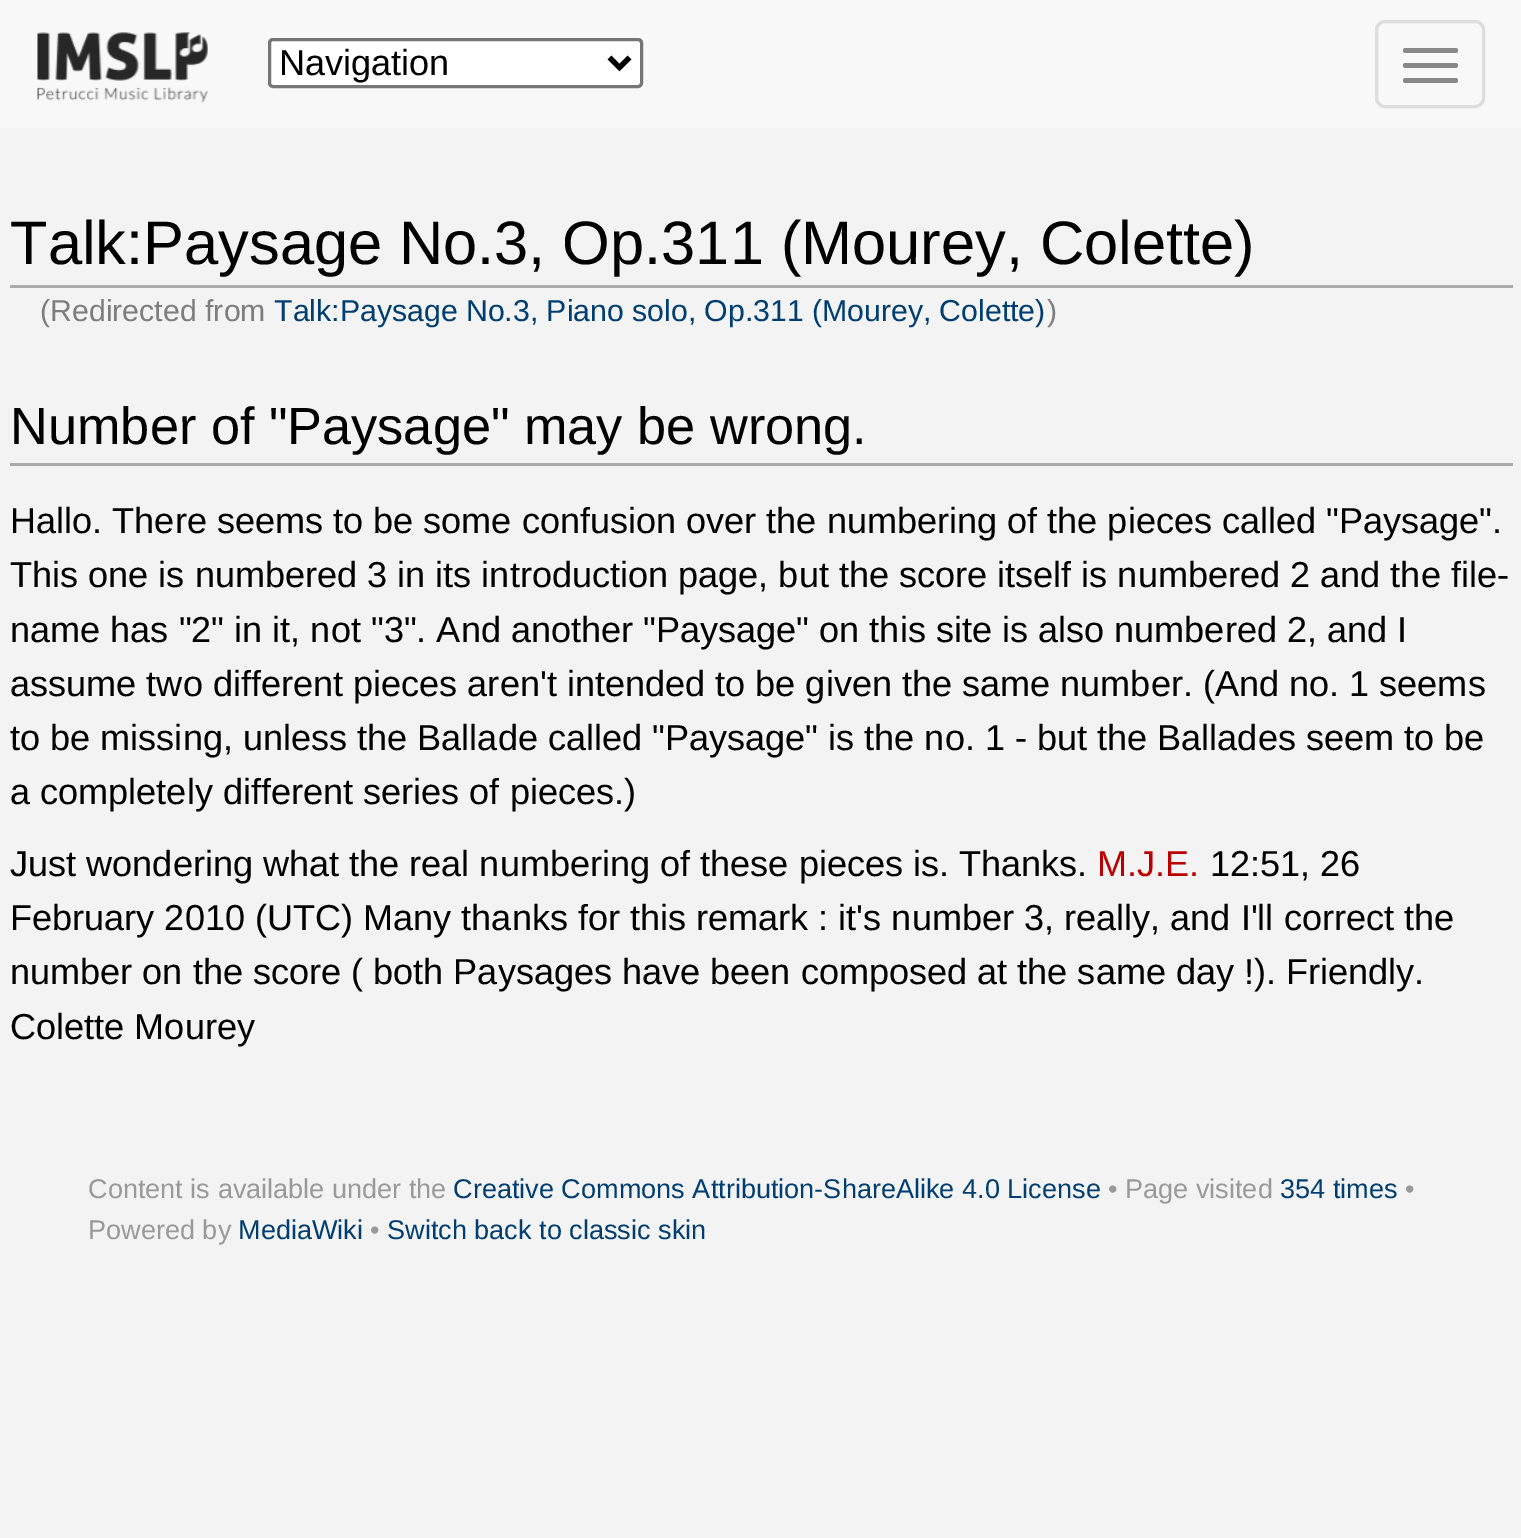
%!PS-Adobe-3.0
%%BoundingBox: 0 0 1521 1538
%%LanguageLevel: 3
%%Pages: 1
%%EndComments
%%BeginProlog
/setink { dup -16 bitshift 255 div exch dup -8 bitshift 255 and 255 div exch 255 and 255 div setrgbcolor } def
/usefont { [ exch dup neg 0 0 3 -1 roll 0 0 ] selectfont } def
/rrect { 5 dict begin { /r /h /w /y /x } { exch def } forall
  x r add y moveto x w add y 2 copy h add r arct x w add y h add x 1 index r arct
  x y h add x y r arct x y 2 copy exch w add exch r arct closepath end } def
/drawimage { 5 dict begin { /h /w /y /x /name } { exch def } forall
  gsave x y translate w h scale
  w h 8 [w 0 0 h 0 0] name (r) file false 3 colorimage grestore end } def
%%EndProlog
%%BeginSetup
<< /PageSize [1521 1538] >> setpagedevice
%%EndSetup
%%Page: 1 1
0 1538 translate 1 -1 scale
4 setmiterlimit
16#F3F3F3 setink
0 0 1521 1538 rectfill
16#F8F8F8 setink
0 0 1521 128 rectfill
(img1.raw) 37 32 171 71 drawimage
16#FFFFFF setink
269.5 39.5 372 47 3.5 rrect gsave fill grestore
16#767676 setink
3 setlinewidth
stroke
16#000000 setink
5 setlinewidth
609.5 57.5 moveto 619.5 67.5 lineto 629.5 57.5 lineto stroke
/LiberationSans-Regular 36.1 usefont
279 75 moveto (Navigation) show
16#DDDDDD setink
3 setlinewidth
1376.5 21.5 107 85 8.5 rrect stroke
16#888888 setink
1403 48 55 5 2.5 rrect fill
1403 63 55 5 2.5 rrect fill
1403 78 55 5 2.5 rrect fill
16#AAAAAA setink
10 285 1503 3 rectfill
/LiberationSans-Regular 61.4 usefont
16#000000 setink
10 264 moveto -0.25 0 32 (Talk:Paysage No.3, Op.311 \(Mourey, Colette\)) widthshow
/LiberationSans-Regular 30.3 usefont
16#7D7D7D setink
40 321 moveto (\(Redirected from) show
16#003D70 setink
274 321 moveto -0.25 0 32 (Talk:Paysage No.3, Piano solo, Op.311 \(Mourey, Colette\)) widthshow
16#7D7D7D setink
1047 321 moveto (\)) show
16#AAAAAA setink
10 463 1503 3 rectfill
/LiberationSans-Regular 52.3 usefont
16#000000 setink
10 444 moveto (Number of "Paysage" may be wrong.) show
/LiberationSans-Regular 36.1 usefont
[
    [(Hallo. There seems to be some confusion over the numbering of the pieces called "Paysage".) 10 533]
    [(This one is numbered 3 in its introduction page, but the score itself is numbered 2 and the file-) 10 587]
    [(name has "2" in it, not "3". And another "Paysage" on this site is also numbered 2, and I) 10 642]
    [(assume two different pieces aren't intended to be given the same number. \(And no. 1 seems) 10 696]
    [(to be missing, unless the Ballade called "Paysage" is the no. 1 - but the Ballades seem to be) 10 750]
    [(a completely different series of pieces.\)) 10 804]
    [(Just wondering what the real numbering of these pieces is. Thanks.) 10 876]
] { aload pop moveto show } forall
16#BA0000 setink
1097 876 moveto (M.J.E.) show
16#000000 setink
[
    [(12:51, 26) 1210 876]
    [(February 2010 \(UTC\) Many thanks for this remark : it's number 3, really, and I'll correct the) 10 930]
    [(number on the score \( both Paysages have been composed at the same day !\). Friendly.) 10 984]
    [(Colette Mourey) 10 1039]
] { aload pop moveto show } forall
/LiberationSans-Regular 27.1 usefont
16#999999 setink
88 1198 moveto (Content is available under the) show
16#003D70 setink
453 1198 moveto (Creative Commons Attribution-ShareAlike 4.0 License) show
16#999999 setink
1108 1198 moveto (• Page visited) show
16#003D70 setink
1280 1198 moveto (354 times) show
16#999999 setink
1405 1198 moveto (•) show
88 1239 moveto (Powered by) show
16#003D70 setink
238 1239 moveto (MediaWiki) show
16#999999 setink
370 1239 moveto (•) show
16#003D70 setink
387 1239 moveto (Switch back to classic skin) show
showpage
%%EOF
